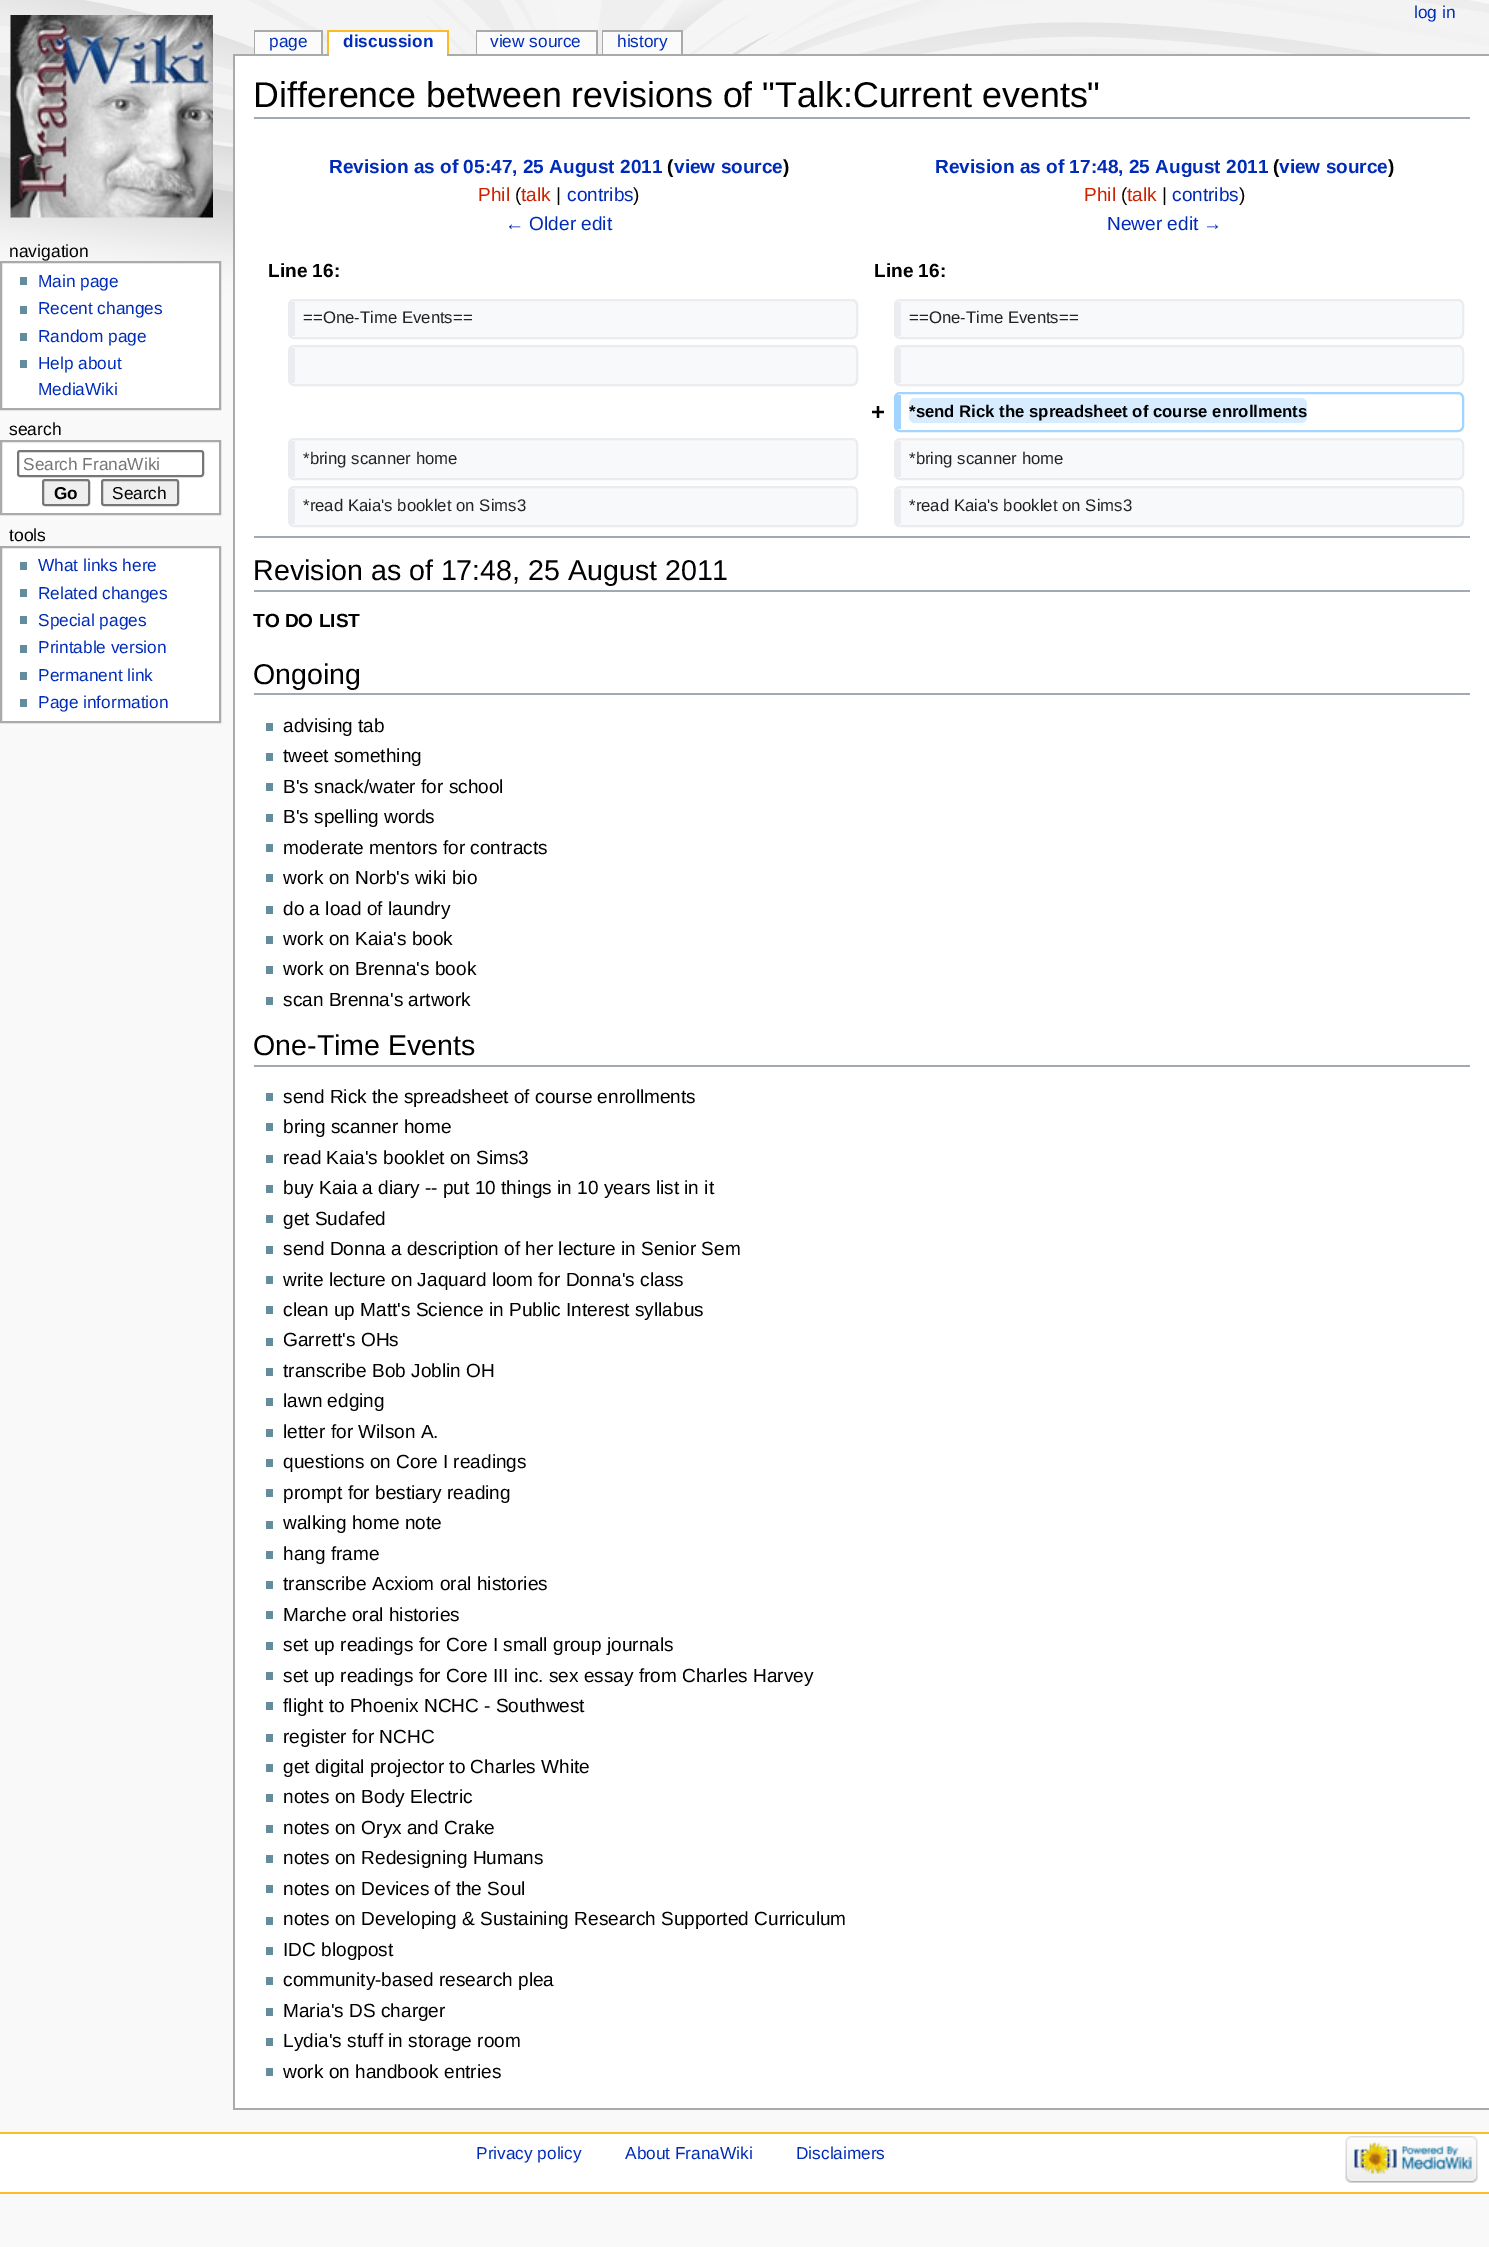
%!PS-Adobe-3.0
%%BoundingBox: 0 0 1489 2247
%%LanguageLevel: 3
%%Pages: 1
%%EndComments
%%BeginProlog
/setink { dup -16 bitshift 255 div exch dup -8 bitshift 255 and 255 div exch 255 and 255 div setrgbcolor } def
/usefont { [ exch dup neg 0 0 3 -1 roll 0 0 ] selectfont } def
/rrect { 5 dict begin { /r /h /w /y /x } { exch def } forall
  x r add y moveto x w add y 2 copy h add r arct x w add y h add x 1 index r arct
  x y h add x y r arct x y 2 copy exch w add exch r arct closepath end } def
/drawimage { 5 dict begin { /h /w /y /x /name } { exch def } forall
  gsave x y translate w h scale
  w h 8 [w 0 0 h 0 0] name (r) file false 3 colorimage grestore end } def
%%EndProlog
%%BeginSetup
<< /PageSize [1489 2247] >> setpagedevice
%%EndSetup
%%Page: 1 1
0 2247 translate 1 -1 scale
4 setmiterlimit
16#F9F9F9 setink
0 0 1489 2247 rectfill
(img1.raw) 0 0 1489 315 drawimage
(img2.raw) 10 15 203 203 drawimage
[
    [254 30 69 2 16#AAAAAA]
    [254 30 2 24 16#AAAAAA]
    [255 32 66 22 16#FBFBFB]
] { aload pop setink rectfill } forall
/LiberationSans-Regular 17.25 usefont
16#002BB8 setink
269 47 moveto (page) show
[
    [321 30 2 24 16#AAAAAA]
    [233 54 1256 2 16#AAAAAA]
    [329 32 118 24 16#FFFFFF]
] { aload pop setink rectfill } forall
/LiberationSans-Bold 17.25 usefont
16#002BB8 setink
343 47 moveto (discussion) show
[
    [327 30 122 2 16#FABD23]
    [447 30 2 24 16#FABD23]
    [327 30 2 24 16#FABD23]
    [476 30 121 2 16#AAAAAA]
    [476 30 2 24 16#AAAAAA]
    [477 32 119 22 16#FBFBFB]
] { aload pop setink rectfill } forall
/LiberationSans-Regular 17.25 usefont
16#002BB8 setink
490 47 moveto (view source) show
[
    [596 30 2 24 16#AAAAAA]
    [602 30 81 2 16#AAAAAA]
    [602 30 2 24 16#AAAAAA]
    [603 32 78 22 16#FBFBFB]
] { aload pop setink rectfill } forall
16#002BB8 setink
617 47 moveto (history) show
16#AAAAAA setink
681 30 2 24 rectfill
16#002BB8 setink
1414 18 moveto (log in) show
/LiberationSans-Regular 17.5 usefont
16#000000 setink
9 257 moveto (navigation) show
16#FFFFFF setink
1 262 moveto 220 262 lineto 220 409 lineto 1 409 lineto closepath gsave fill grestore
16#AAAAAA setink
2 setlinewidth
stroke
16#638C9C setink
20 277 7 8 rectfill
/LiberationSans-Regular 17.25 usefont
16#002BB8 setink
38 287 moveto (Main page) show
16#638C9C setink
20 306 7 8 rectfill
16#002BB8 setink
38 314 moveto (Recent changes) show
16#638C9C setink
20 333 7 8 rectfill
16#002BB8 setink
38 342 moveto (Random page) show
16#638C9C setink
20 360 7 8 rectfill
16#002BB8 setink
38 369 moveto (Help about) show
38 395 moveto (MediaWiki) show
/LiberationSans-Regular 17.5 usefont
16#000000 setink
9 435 moveto (search) show
16#FFFFFF setink
1 441 moveto 220 441 lineto 220 514 lineto 1 514 lineto closepath gsave fill grestore
16#AAAAAA setink
stroke
16#767676 setink
18 451 185 25 2 rrect stroke
/LiberationSans-Regular 17.25 usefont
16#757575 setink
23 470 moveto (Search FranaWiki) show
16#EFEFEF setink
43 480 46 25 2 rrect gsave fill grestore
16#767676 setink
stroke
/LiberationSans-Bold 17.25 usefont
16#000000 setink
54 499 moveto (Go) show
16#EFEFEF setink
102 480 76 25 2 rrect gsave fill grestore
16#767676 setink
stroke
/LiberationSans-Regular 17.25 usefont
16#000000 setink
112 499 moveto (Search) show
/LiberationSans-Regular 17.5 usefont
9 541 moveto (tools) show
16#FFFFFF setink
1 547 moveto 220 547 lineto 220 722 lineto 1 722 lineto closepath gsave fill grestore
16#AAAAAA setink
stroke
16#638C9C setink
20 562 7 8 rectfill
/LiberationSans-Regular 17.25 usefont
16#002BB8 setink
38 571 moveto (What links here) show
16#638C9C setink
20 589 7 8 rectfill
16#002BB8 setink
38 599 moveto (Related changes) show
16#638C9C setink
20 616 7 8 rectfill
16#002BB8 setink
38 626 moveto (Special pages) show
16#638C9C setink
20 645 7 8 rectfill
16#002BB8 setink
38 653 moveto (Printable version) show
16#638C9C setink
20 672 7 8 rectfill
16#002BB8 setink
38 681 moveto (Permanent link) show
16#638C9C setink
20 699 7 8 rectfill
16#002BB8 setink
38 708 moveto (Page information) show
[
    [235 56 1254 2052 16#FFFFFF]
    [233 2108 1256 2 16#AAAAAA]
    [233 54 2 2055 16#AAAAAA]
    [254 117 1216 2 16#A2A9B1]
] { aload pop setink rectfill } forall
/LiberationSans-Regular 35.8 usefont
16#000000 setink
253 107 moveto (Difference between revisions of "Talk:Current events") show
/LiberationSans-Bold 19.05 usefont
16#002BB8 setink
329 173 moveto (Revision as of 05:47, 25 August 2011) show
16#000000 setink
667 173 moveto (\() show
16#002BB8 setink
674 173 moveto (view source) show
16#000000 setink
783 173 moveto (\)) show
/LiberationSans-Regular 19.05 usefont
16#CC2200 setink
478 201 moveto (Phil) show
16#000000 setink
515 201 moveto (\() show
16#CC2200 setink
521 201 moveto (talk) show
16#000000 setink
556 201 moveto (|) show
16#002BB8 setink
567 201 moveto (contribs) show
16#000000 setink
633 201 moveto (\)) show
16#002BB8 setink
505 230 moveto (← Older edit) show
/LiberationSans-Bold 19.05 usefont
935 173 moveto (Revision as of 17:48, 25 August 2011) show
16#000000 setink
1273 173 moveto (\() show
16#002BB8 setink
1279 173 moveto (view source) show
16#000000 setink
1388 173 moveto (\)) show
/LiberationSans-Regular 19.05 usefont
16#CC2200 setink
1084 201 moveto (Phil) show
16#000000 setink
1121 201 moveto (\() show
16#CC2200 setink
1127 201 moveto (talk) show
16#000000 setink
1162 201 moveto (|) show
16#002BB8 setink
1172 201 moveto (contribs) show
16#000000 setink
1239 201 moveto (\)) show
16#002BB8 setink
1107 230 moveto (Newer edit →) show
/LiberationSans-Bold 19.05 usefont
16#000000 setink
268 277 moveto (Line 16:) show
874 277 moveto (Line 16:) show
16#F8F9FA setink
294 300 moveto 852 300 lineto 855 300 856 302 856 304 curveto 856 333 lineto 856 336 855 338 852 338 curveto 294 338 lineto closepath fill
16#EAECF0 setink
289 300 568 38 5 rrect stroke
290 302 5 34 rectfill
/LiberationSans-Regular 16.75 usefont
16#222222 setink
303 323 moveto (==One-Time Events==) show
16#F8F9FA setink
900 300 moveto 1458 300 lineto 1461 300 1462 302 1462 304 curveto 1462 333 lineto 1462 336 1461 338 1458 338 curveto 900 338 lineto closepath fill
16#EAECF0 setink
895 300 568 38 5 rrect stroke
896 302 5 34 rectfill
16#222222 setink
909 323 moveto (==One-Time Events==) show
16#F8F9FA setink
294 346 moveto 852 346 lineto 855 346 856 348 856 351 curveto 856 380 lineto 856 382 855 384 852 384 curveto 294 384 lineto closepath fill
16#EAECF0 setink
289 346 568 39 5 rrect stroke
290 348 5 35 rectfill
16#F8F9FA setink
900 346 moveto 1458 346 lineto 1461 346 1462 348 1462 351 curveto 1462 380 lineto 1462 382 1461 384 1458 384 curveto 900 384 lineto closepath fill
16#EAECF0 setink
895 346 568 39 5 rrect stroke
896 348 5 35 rectfill
/LiberationSans-Bold 24 usefont
16#000000 setink
871 420 moveto (+) show
16#A3D3FF setink
895 393 568 38 5 rrect stroke
896 395 5 34 rectfill
16#D8ECFF setink
909 398 398 25 6 rrect fill
/LiberationSans-Bold 16.75 usefont
16#000000 setink
909 417 moveto (*send Rick the spreadsheet of course enrollments) show
16#F8F9FA setink
294 440 moveto 852 440 lineto 855 440 856 441 856 444 curveto 856 474 lineto 856 477 855 478 852 478 curveto 294 478 lineto closepath fill
16#EAECF0 setink
289 439 568 40 5 rrect stroke
290 441 5 36 rectfill
/LiberationSans-Regular 16.75 usefont
16#222222 setink
303 464 moveto (*bring scanner home) show
16#F8F9FA setink
900 440 moveto 1458 440 lineto 1461 440 1462 441 1462 444 curveto 1462 474 lineto 1462 477 1461 478 1458 478 curveto 900 478 lineto closepath fill
16#EAECF0 setink
895 439 568 40 5 rrect stroke
896 441 5 36 rectfill
16#222222 setink
909 464 moveto (*bring scanner home) show
16#F8F9FA setink
294 488 moveto 852 488 lineto 855 488 856 489 856 492 curveto 856 521 lineto 856 523 855 525 852 525 curveto 294 525 lineto closepath fill
16#EAECF0 setink
289 487 568 39 5 rrect stroke
290 489 5 35 rectfill
16#222222 setink
303 511 moveto (*read Kaia's booklet on Sims3) show
16#F8F9FA setink
900 488 moveto 1458 488 lineto 1461 488 1462 489 1462 492 curveto 1462 521 lineto 1462 523 1461 525 1458 525 curveto 900 525 lineto closepath fill
16#EAECF0 setink
895 487 568 39 5 rrect stroke
896 489 5 35 rectfill
16#222222 setink
909 511 moveto (*read Kaia's booklet on Sims3) show
16#A2A9B1 setink
254 536 1216 2 rectfill
254 590 1216 2 rectfill
/LiberationSans-Regular 28.6 usefont
16#000000 setink
253 580 moveto (Revision as of 17:48, 25 August 2011) show
/LiberationSans-Bold 19.05 usefont
253 627 moveto (TO DO LIST) show
16#A2A9B1 setink
254 693 1216 2 rectfill
/LiberationSans-Regular 28.6 usefont
16#000000 setink
253 684 moveto (Ongoing) show
16#638C9C setink
266 723 7 8 rectfill
/LiberationSans-Regular 19.05 usefont
16#000000 setink
283 732 moveto (advising tab) show
16#638C9C setink
266 753 7 8 rectfill
16#000000 setink
283 762 moveto (tweet something) show
16#638C9C setink
266 783 7 8 rectfill
16#000000 setink
283 793 moveto (B's snack/water for school) show
16#638C9C setink
266 814 7 8 rectfill
16#000000 setink
283 823 moveto (B's spelling words) show
16#638C9C setink
266 844 7 8 rectfill
16#000000 setink
283 854 moveto (moderate mentors for contracts) show
16#638C9C setink
266 874 7 8 rectfill
16#000000 setink
283 884 moveto (work on Norb's wiki bio) show
16#638C9C setink
266 906 7 8 rectfill
16#000000 setink
283 915 moveto (do a load of laundry) show
16#638C9C setink
266 936 7 8 rectfill
16#000000 setink
283 945 moveto (work on Kaia's book) show
16#638C9C setink
266 966 7 8 rectfill
16#000000 setink
283 975 moveto (work on Brenna's book) show
16#638C9C setink
266 997 7 8 rectfill
16#000000 setink
283 1006 moveto (scan Brenna's artwork) show
16#A2A9B1 setink
254 1065 1216 2 rectfill
/LiberationSans-Regular 28.6 usefont
16#000000 setink
253 1055 moveto (One-Time Events) show
16#638C9C setink
266 1093 7 8 rectfill
/LiberationSans-Regular 19.05 usefont
16#000000 setink
283 1103 moveto (send Rick the spreadsheet of course enrollments) show
16#638C9C setink
266 1123 7 8 rectfill
16#000000 setink
283 1133 moveto (bring scanner home) show
16#638C9C setink
266 1155 7 8 rectfill
16#000000 setink
283 1164 moveto (read Kaia's booklet on Sims3) show
16#638C9C setink
266 1185 7 8 rectfill
16#000000 setink
283 1194 moveto (buy Kaia a diary -- put 10 things in 10 years list in it) show
16#638C9C setink
266 1215 7 8 rectfill
16#000000 setink
283 1225 moveto (get Sudafed) show
16#638C9C setink
266 1246 7 8 rectfill
16#000000 setink
283 1255 moveto (send Donna a description of her lecture in Senior Sem) show
16#638C9C setink
266 1276 7 8 rectfill
16#000000 setink
283 1286 moveto (write lecture on Jaquard loom for Donna's class) show
16#638C9C setink
266 1306 7 8 rectfill
16#000000 setink
283 1316 moveto (clean up Matt's Science in Public Interest syllabus) show
16#638C9C setink
266 1338 7 8 rectfill
16#000000 setink
283 1346 moveto (Garrett's OHs) show
16#638C9C setink
266 1368 7 8 rectfill
16#000000 setink
283 1377 moveto (transcribe Bob Joblin OH) show
16#638C9C setink
266 1398 7 8 rectfill
16#000000 setink
283 1407 moveto (lawn edging) show
16#638C9C setink
266 1429 7 8 rectfill
16#000000 setink
283 1438 moveto (letter for Wilson A.) show
16#638C9C setink
266 1459 7 8 rectfill
16#000000 setink
283 1468 moveto (questions on Core I readings) show
16#638C9C setink
266 1489 7 8 rectfill
16#000000 setink
283 1499 moveto (prompt for bestiary reading) show
16#638C9C setink
266 1521 7 8 rectfill
16#000000 setink
283 1529 moveto (walking home note) show
16#638C9C setink
266 1551 7 8 rectfill
16#000000 setink
283 1560 moveto (hang frame) show
16#638C9C setink
266 1581 7 8 rectfill
16#000000 setink
283 1590 moveto (transcribe Acxiom oral histories) show
16#638C9C setink
266 1611 7 8 rectfill
16#000000 setink
283 1621 moveto (Marche oral histories) show
16#638C9C setink
266 1642 7 8 rectfill
16#000000 setink
283 1651 moveto (set up readings for Core I small group journals) show
16#638C9C setink
266 1672 7 8 rectfill
16#000000 setink
283 1682 moveto (set up readings for Core III inc. sex essay from Charles Harvey) show
16#638C9C setink
266 1702 7 8 rectfill
16#000000 setink
283 1712 moveto (flight to Phoenix NCHC - Southwest) show
16#638C9C setink
266 1734 7 8 rectfill
16#000000 setink
283 1743 moveto (register for NCHC) show
16#638C9C setink
266 1764 7 8 rectfill
16#000000 setink
283 1773 moveto (get digital projector to Charles White) show
16#638C9C setink
266 1794 7 8 rectfill
16#000000 setink
283 1803 moveto (notes on Body Electric) show
16#638C9C setink
266 1825 7 8 rectfill
16#000000 setink
283 1834 moveto (notes on Oryx and Crake) show
16#638C9C setink
266 1855 7 8 rectfill
16#000000 setink
283 1864 moveto (notes on Redesigning Humans) show
16#638C9C setink
266 1885 7 8 rectfill
16#000000 setink
283 1895 moveto (notes on Devices of the Soul) show
16#638C9C setink
266 1917 7 8 rectfill
16#000000 setink
283 1925 moveto (notes on Developing & Sustaining Research Supported Curriculum) show
16#638C9C setink
266 1947 7 8 rectfill
16#000000 setink
283 1956 moveto (IDC blogpost) show
16#638C9C setink
266 1977 7 8 rectfill
16#000000 setink
283 1986 moveto (community-based research plea) show
16#638C9C setink
266 2008 7 8 rectfill
16#000000 setink
283 2017 moveto (Maria's DS charger) show
16#638C9C setink
266 2038 7 8 rectfill
16#000000 setink
283 2047 moveto (Lydia's stuff in storage room) show
16#638C9C setink
266 2068 7 8 rectfill
16#000000 setink
283 2078 moveto (work on handbook entries) show
[
    [0 2134 1489 58 16#FFFFFF]
    [0 2132 1489 2 16#FABD23]
    [0 2192 1489 2 16#FABD23]
] { aload pop setink rectfill } forall
/LiberationSans-Regular 17.25 usefont
16#002BB8 setink
[
    [(Privacy policy) 476 2159]
    [(About FranaWiki) 625 2159]
    [(Disclaimers) 796 2159]
] { aload pop moveto show } forall
(img3.raw) 1345 2136 133 47 drawimage
showpage
%%EOF
